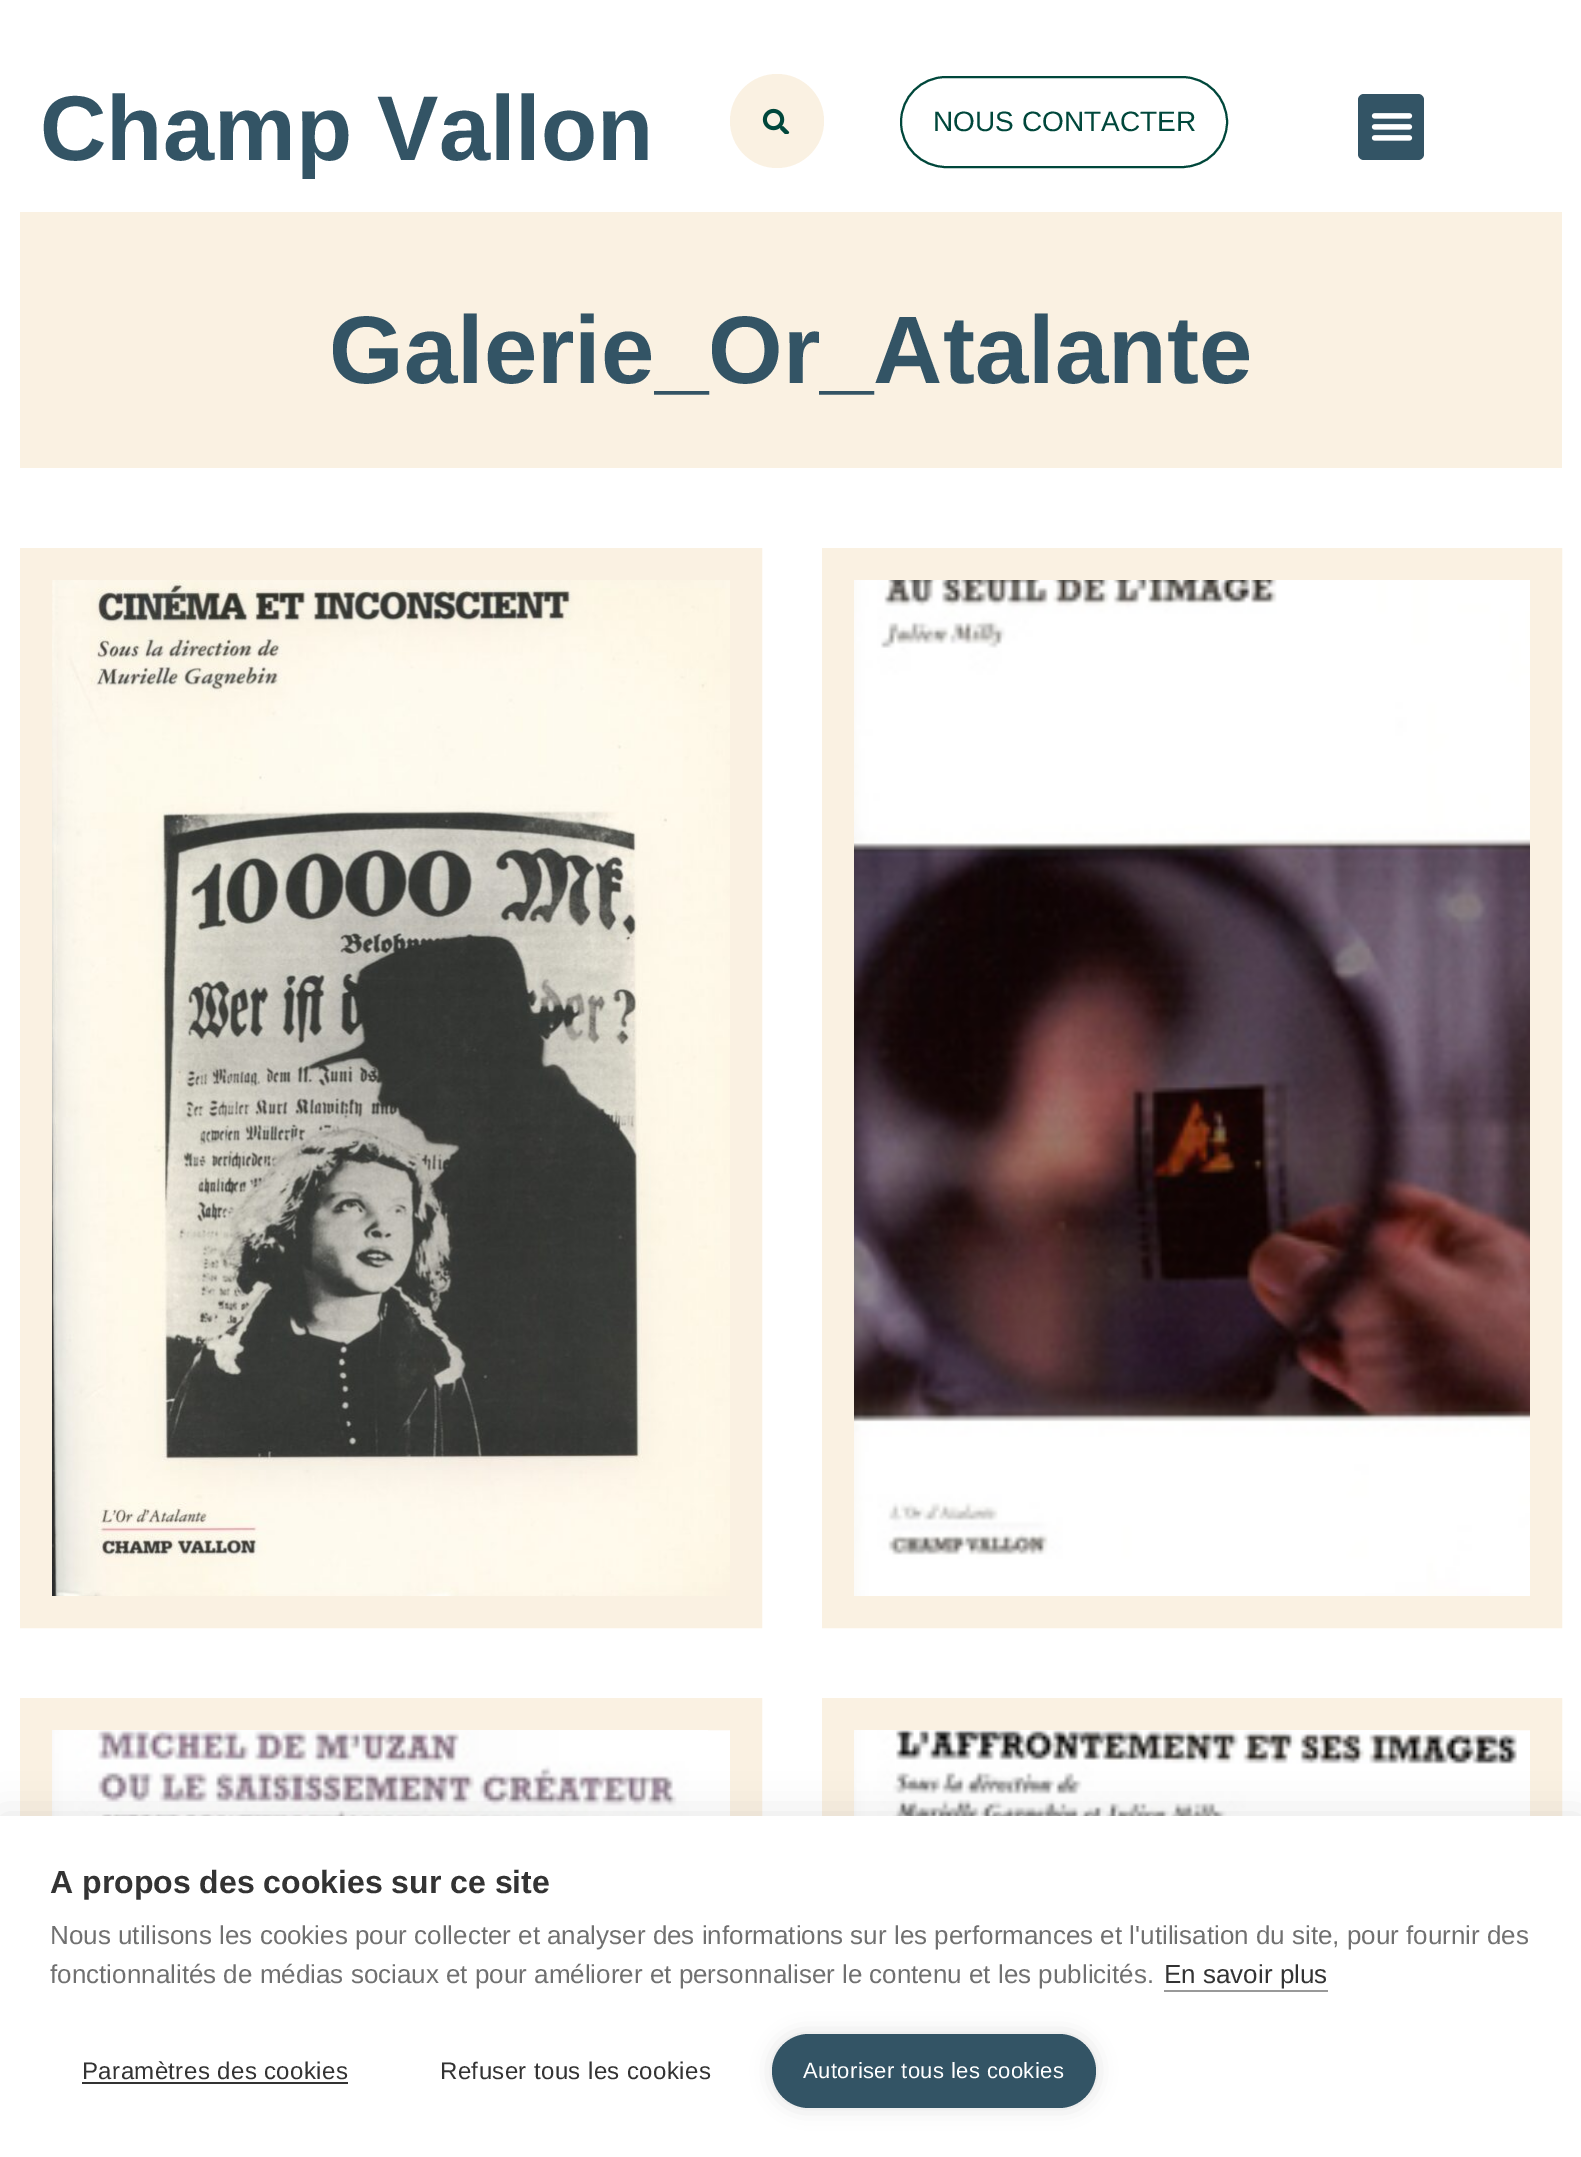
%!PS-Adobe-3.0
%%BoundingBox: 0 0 1581 2157
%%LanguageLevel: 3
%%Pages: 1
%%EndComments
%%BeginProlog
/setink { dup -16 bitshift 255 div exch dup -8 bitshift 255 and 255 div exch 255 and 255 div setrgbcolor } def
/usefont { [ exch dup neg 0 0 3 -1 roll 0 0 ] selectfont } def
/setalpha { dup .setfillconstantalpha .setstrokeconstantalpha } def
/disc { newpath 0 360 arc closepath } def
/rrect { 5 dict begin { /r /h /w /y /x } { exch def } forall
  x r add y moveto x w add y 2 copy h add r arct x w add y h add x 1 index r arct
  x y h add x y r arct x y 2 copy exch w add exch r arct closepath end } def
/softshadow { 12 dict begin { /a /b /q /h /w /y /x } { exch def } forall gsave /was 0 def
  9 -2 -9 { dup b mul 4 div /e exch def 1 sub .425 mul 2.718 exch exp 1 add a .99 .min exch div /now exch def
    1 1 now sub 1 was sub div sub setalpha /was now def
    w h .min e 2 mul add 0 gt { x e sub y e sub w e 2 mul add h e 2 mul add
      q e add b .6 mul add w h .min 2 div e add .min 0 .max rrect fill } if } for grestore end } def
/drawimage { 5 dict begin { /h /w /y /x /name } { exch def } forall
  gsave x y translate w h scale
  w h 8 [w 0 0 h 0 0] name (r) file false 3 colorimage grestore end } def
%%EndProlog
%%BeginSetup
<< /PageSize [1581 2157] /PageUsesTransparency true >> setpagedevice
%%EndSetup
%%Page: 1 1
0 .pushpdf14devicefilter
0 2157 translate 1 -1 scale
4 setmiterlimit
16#FFFFFF setink
0 0 1581 2157 rectfill
/LiberationSans-Bold 92 usefont
16#335465 setink
40 160 moveto (Champ Vallon) show
16#FAF1E2 setink
777 121 47 disc fill
(img1.raw) 762 108 28 26 drawimage
16#00473B setink
2 setlinewidth
901 77 326 90 45 rrect stroke
/LiberationSans-Regular 28 usefont
933 131 moveto (NOUS CONTACTER) show
16#335465 setink
1358 94 66 66 6 rrect fill
(img2.raw) 1371 113 42 28 drawimage
16#FAF1E2 setink
20 212 1542 256 rectfill
/LiberationSans-Bold 96 usefont
16#335465 setink
329 383 moveto (Galerie_Or_Atalante) show
16#FAF1E2 setink
32 setlinewidth
36 564 moveto 746 564 lineto 746 1612 lineto 36 1612 lineto closepath stroke
(img3.raw) 52 580 678 1016 drawimage
838 564 moveto 1546 564 lineto 1546 1612 lineto 838 1612 lineto closepath stroke
(img4.raw) 854 580 676 1016 drawimage
36 1714 moveto 746 1714 lineto 746 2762 lineto 36 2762 lineto closepath stroke
(img5.raw) 52 1730 656 86 drawimage
838 1714 moveto 1546 1714 lineto 1546 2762 lineto 838 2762 lineto closepath stroke
(img6.raw) 854 1730 663 86 drawimage
16#000000 setink
0 1816 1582 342 0 20 0.1 softshadow
16#FFFFFF setink
0 1816 1581 341 rectfill
/LiberationSans-Bold 32 usefont
16#333333 setink
50 1893 moveto (A propos des cookies sur ce site) show
/LiberationSans-Regular 26 usefont
16#707070 setink
50 1944 moveto (Nous utilisons les cookies pour collecter et analyser des informations sur les performances et l'utilisation du site, pour fournir des) show
50 1983 moveto (fonctionnalités de médias sociaux et pour améliorer et personnaliser le contenu et les publicités.) show
16#333333 setink
1164 1983 moveto (En savoir plus) show
16#999999 setink
1164 1990 164 2 rectfill
/LiberationSans-Regular 24 usefont
16#333333 setink
82 2079 moveto 0.4 0 (Paramètres des cookies) ashow
82 2082 266 2 rectfill
440 2079 moveto 0.4 0 (Refuser tous les cookies) ashow
16#000000 setink
772 2034 324 74 37 10 0.12 softshadow
16#335465 setink
772 2034 324 74 37 rrect fill
/LiberationSans-Regular 22 usefont
16#FFFFFF setink
803 2078 moveto 0.4 0 (Autoriser tous les cookies) ashow
.poppdf14devicefilter showpage
%%EOF
